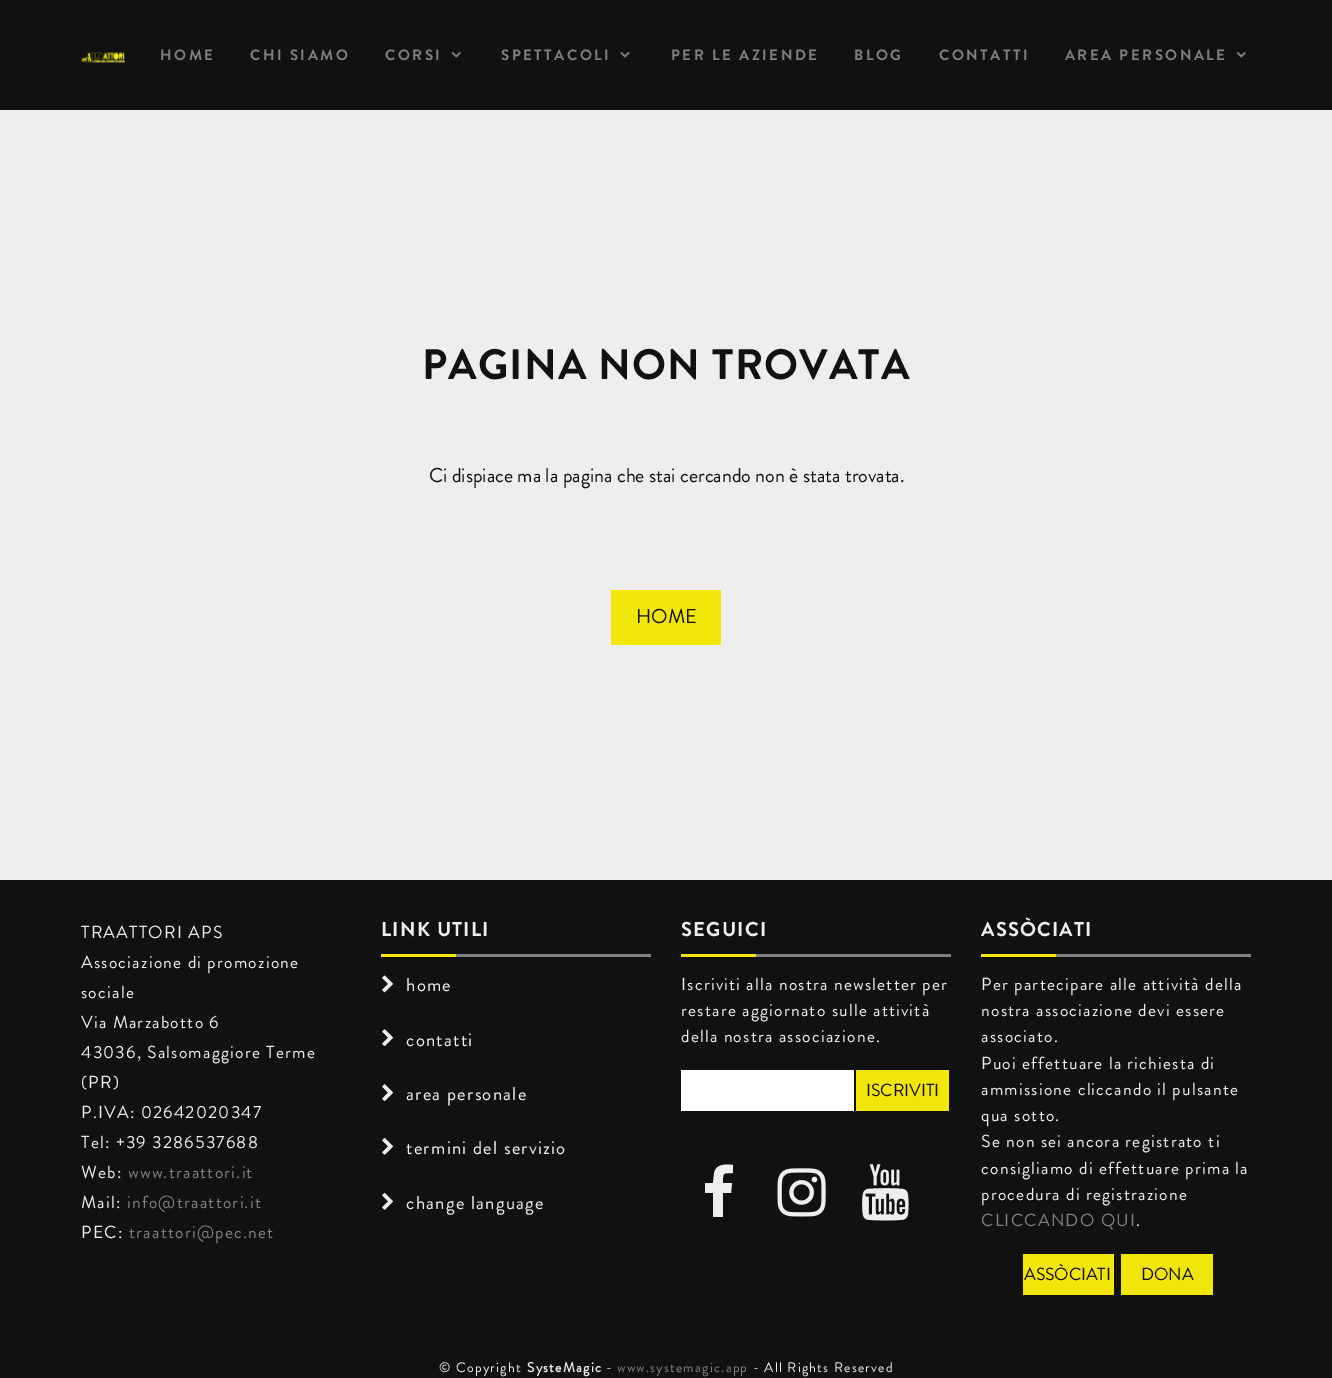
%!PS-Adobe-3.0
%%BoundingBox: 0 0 1332 1378
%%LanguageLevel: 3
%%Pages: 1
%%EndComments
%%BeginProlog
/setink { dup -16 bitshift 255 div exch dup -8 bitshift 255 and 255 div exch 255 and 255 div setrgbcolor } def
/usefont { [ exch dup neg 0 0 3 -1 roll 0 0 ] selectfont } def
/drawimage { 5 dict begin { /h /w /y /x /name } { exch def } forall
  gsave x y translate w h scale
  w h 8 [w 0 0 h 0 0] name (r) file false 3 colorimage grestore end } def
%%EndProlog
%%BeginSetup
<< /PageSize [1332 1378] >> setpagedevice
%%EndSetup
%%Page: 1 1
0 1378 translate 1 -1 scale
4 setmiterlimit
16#111111 setink
0 0 1332 1378 rectfill
(img1.raw) 81 52 44 11 drawimage
/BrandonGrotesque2-Bold 15 usefont
16#808080 setink
160 60 moveto 2.5 0 (HOME) ashow
250 60 moveto 2.5 0 (CHI SIAMO) ashow
385 60 moveto 2.5 0 (CORSI) ashow
(img2.raw) 451 52 10 6 drawimage
501 60 moveto 2.5 0 (SPETTACOLI) ashow
(img3.raw) 620 52 10 6 drawimage
671 60 moveto 2.5 0 (PER LE AZIENDE) ashow
854 60 moveto 2.5 0 (BLOG) ashow
939 60 moveto 2.5 0 (CONTATTI) ashow
1065 60 moveto 2.5 0 (AREA PERSONALE) ashow
(img2.raw) 1236 52 10 6 drawimage
16#EEEEEE setink
0 110 1332 770 rectfill
/BrandonGrotesque2-Bold 42.5 usefont
16#111111 setink
422 379 moveto 1.25 0 (PAGINA NON TROVATA) ashow
/BrandonGrotesque-Regular 20 usefont
429 482 moveto (Ci dispiace ma la pagina che stai cercando non è stata trovata.) show
16#F1E50A setink
611 590 110 55 rectfill
16#111111 setink
636 623 moveto (HOME) show
/BrandonGrotesque-Regular 17.5 usefont
16#EEEEEE setink
81 938 moveto 1.25 0 (TRAATTORI APS) ashow
81 968 moveto 1.25 0 (Associazione di promozione) ashow
81 998 moveto 1.25 0 (sociale) ashow
81 1028 moveto 1.25 0 (Via Marzabotto 6) ashow
81 1058 moveto 1.25 0 (43036, Salsomaggiore Terme) ashow
81 1088 moveto 1.25 0 (\(PR\)) ashow
81 1118 moveto 1.25 0 (P.IVA: 02642020347) ashow
81 1148 moveto 1.25 0 (Tel: +39 3286537688) ashow
81 1178 moveto 1.25 0 (Web:) ashow
16#808080 setink
128 1178 moveto 1.25 0 (www.traattori.it) ashow
16#EEEEEE setink
81 1208 moveto 1.25 0 (Mail:) ashow
16#808080 setink
127 1208 moveto 1.25 0 (info@traattori.it) ashow
16#EEEEEE setink
81 1238 moveto 1.25 0 (PEC:) ashow
16#808080 setink
129 1238 moveto 1.25 0 (traattori@pec.net) ashow
/BrandonGrotesque2-Bold 20 usefont
16#EEEEEE setink
381 936 moveto 1.25 0 (LINK UTILI) ashow
16#F1E50A setink
381 954 75 3 rectfill
16#808080 setink
456 954 195 3 rectfill
(img4.raw) 382 975 11 18 drawimage
/BrandonGrotesque-Regular 18.75 usefont
16#EEEEEE setink
406 991 moveto 1.25 0 (home) ashow
(img5.raw) 382 1029 11 17 drawimage
406 1046 moveto 1.25 0 (contatti) ashow
(img5.raw) 382 1084 11 17 drawimage
406 1100 moveto 1.25 0 (area personale) ashow
(img6.raw) 382 1138 11 17 drawimage
406 1154 moveto 1.25 0 (termini del servizio) ashow
(img6.raw) 382 1193 11 17 drawimage
406 1209 moveto 1.25 0 (change language) ashow
/BrandonGrotesque2-Bold 20 usefont
681 936 moveto 1.25 0 (SEGUICI) ashow
16#F1E50A setink
681 954 75 3 rectfill
16#808080 setink
756 954 195 3 rectfill
/BrandonGrotesque-Regular 17.5 usefont
16#EEEEEE setink
681 990 moveto 1.25 0 (Iscriviti alla nostra newsletter per) ashow
681 1016 moveto 1.25 0 (restare aggiornato sulle attività) ashow
681 1042 moveto 1.25 0 (della nostra associazione.) ashow
16#FFFFFF setink
681 1070 173 41 rectfill
16#F1E50A setink
856 1070 93 41 rectfill
16#111111 setink
866 1096 moveto (ISCRIVITI) show
16#EEEEEE setink
733 1165 moveto 733 1173 lineto 722 1173 723 1173 723 1183 curveto 732 1183 lineto 731 1193 lineto 723 1193 lineto 723 1217 lineto 713 1217 lineto 713 1193 lineto 705 1193 lineto 705 1183 lineto 713 1183 lineto 714 1174 lineto 715 1164 725 1164 733 1165 curveto closepath fill
(img7.raw) 777 1168 49 49 drawimage
(img8.raw) 862 1164 47 57 drawimage
/BrandonGrotesque2-Bold 20 usefont
981 936 moveto 1.25 0 (ASSÒCIATI) ashow
16#F1E50A setink
981 954 75 3 rectfill
16#808080 setink
1056 954 195 3 rectfill
/BrandonGrotesque-Regular 17.5 usefont
16#EEEEEE setink
981 990 moveto 1.25 0 (Per partecipare alle attività della) ashow
981 1016 moveto 1.25 0 (nostra associazione devi essere) ashow
981 1042 moveto 1.25 0 (associato.) ashow
981 1069 moveto 1.25 0 (Puoi effettuare la richiesta di) ashow
981 1095 moveto 1.25 0 (ammissione cliccando il pulsante) ashow
981 1121 moveto 1.25 0 (qua sotto.) ashow
981 1147 moveto 1.25 0 (Se non sei ancora registrato ti) ashow
981 1174 moveto 1.25 0 (consigliamo di effettuare prima la) ashow
981 1200 moveto 1.25 0 (procedura di registrazione) ashow
16#808080 setink
981 1226 moveto 1.25 0 (CLICCANDO QUI) ashow
16#EEEEEE setink
1136 1226 moveto 1.25 0 (.) ashow
16#F1E50A setink
1023 1254 91 41 rectfill
16#111111 setink
1024 1280 moveto (ASSÒCIATI) show
16#F1E50A setink
1121 1254 92 41 rectfill
16#111111 setink
1141 1280 moveto (DONA) show
/BrandonGrotesque-Regular 13.75 usefont
16#EEEEEE setink
439 1372 moveto 1.25 0 (© Copyright) ashow
/BrandonGrotesque-Bold 13.75 usefont
527 1372 moveto 1.25 0 (SysteMagic) ashow
/BrandonGrotesque-Regular 13.75 usefont
606 1372 moveto 1.25 0 (-) ashow
16#808080 setink
617 1372 moveto 1.25 0 (www.systemagic.app) ashow
16#EEEEEE setink
753 1372 moveto 1.25 0 (- All Rights Reserved) ashow
showpage
%%EOF
